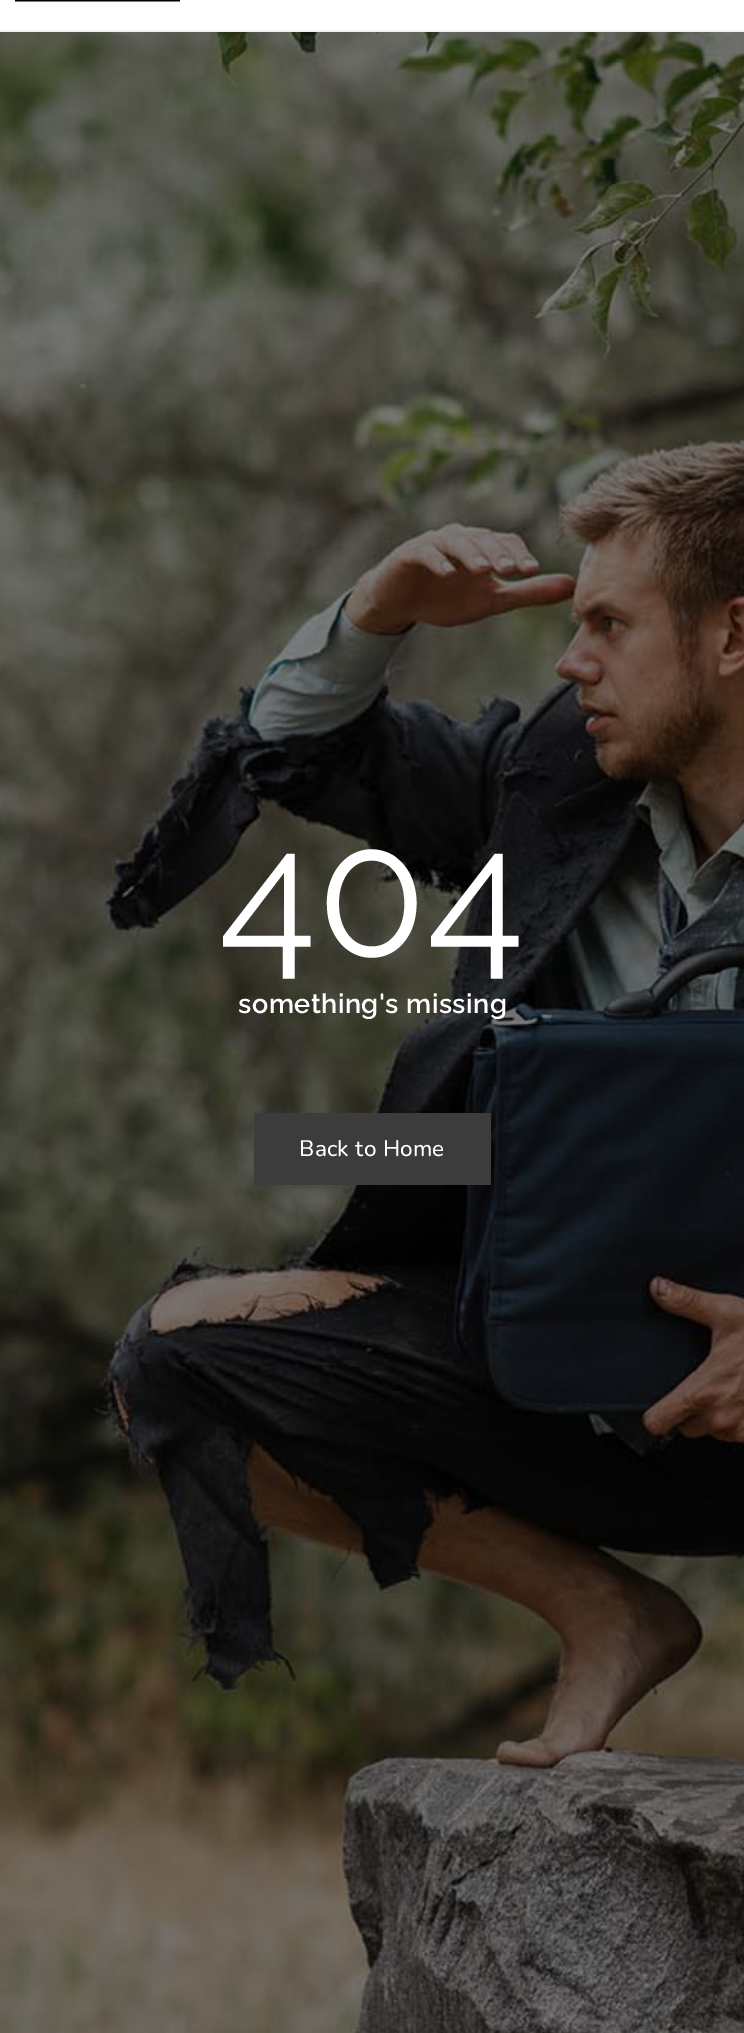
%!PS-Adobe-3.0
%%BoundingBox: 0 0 744 2033
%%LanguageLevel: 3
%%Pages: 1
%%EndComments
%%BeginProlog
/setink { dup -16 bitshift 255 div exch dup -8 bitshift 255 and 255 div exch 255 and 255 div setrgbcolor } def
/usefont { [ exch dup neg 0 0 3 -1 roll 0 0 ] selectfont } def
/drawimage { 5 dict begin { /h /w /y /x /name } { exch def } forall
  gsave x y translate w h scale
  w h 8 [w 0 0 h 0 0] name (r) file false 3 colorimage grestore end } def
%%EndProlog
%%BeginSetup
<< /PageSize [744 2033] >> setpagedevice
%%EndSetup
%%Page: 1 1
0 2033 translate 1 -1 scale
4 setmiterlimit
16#FFFFFF setink
0 0 744 2033 rectfill
16#EFF1F2 setink
0 30 744 2 rectfill
(img1.raw) 15 0 165 2 drawimage
(img2.raw) 0 32 744 2001 drawimage
/Raleway-Regular 179 usefont
16#FFFFFF setink
219 956 moveto 0.5 0 (404) ashow
/Raleway-SemiBold 27 usefont
238 1013 moveto 0.5 0 (something's missing) ashow
16#3C3C3C setink
254 1113 237 72 rectfill
/Nunito-Medium 22.5 usefont
16#FFFFFF setink
299 1156 moveto 0.25 0 (Back to Home) ashow
showpage
%%EOF
